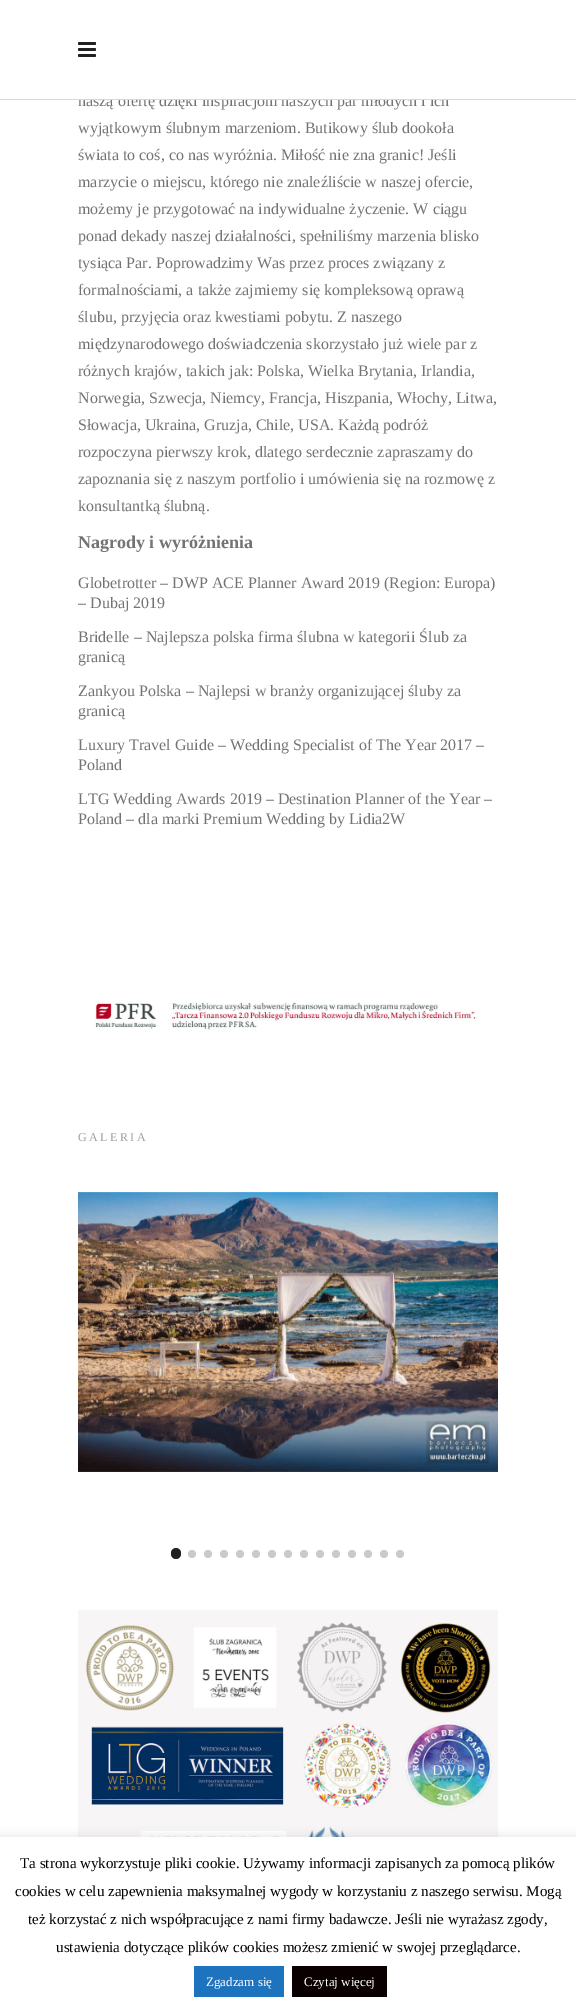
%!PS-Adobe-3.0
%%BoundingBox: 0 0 576 2009
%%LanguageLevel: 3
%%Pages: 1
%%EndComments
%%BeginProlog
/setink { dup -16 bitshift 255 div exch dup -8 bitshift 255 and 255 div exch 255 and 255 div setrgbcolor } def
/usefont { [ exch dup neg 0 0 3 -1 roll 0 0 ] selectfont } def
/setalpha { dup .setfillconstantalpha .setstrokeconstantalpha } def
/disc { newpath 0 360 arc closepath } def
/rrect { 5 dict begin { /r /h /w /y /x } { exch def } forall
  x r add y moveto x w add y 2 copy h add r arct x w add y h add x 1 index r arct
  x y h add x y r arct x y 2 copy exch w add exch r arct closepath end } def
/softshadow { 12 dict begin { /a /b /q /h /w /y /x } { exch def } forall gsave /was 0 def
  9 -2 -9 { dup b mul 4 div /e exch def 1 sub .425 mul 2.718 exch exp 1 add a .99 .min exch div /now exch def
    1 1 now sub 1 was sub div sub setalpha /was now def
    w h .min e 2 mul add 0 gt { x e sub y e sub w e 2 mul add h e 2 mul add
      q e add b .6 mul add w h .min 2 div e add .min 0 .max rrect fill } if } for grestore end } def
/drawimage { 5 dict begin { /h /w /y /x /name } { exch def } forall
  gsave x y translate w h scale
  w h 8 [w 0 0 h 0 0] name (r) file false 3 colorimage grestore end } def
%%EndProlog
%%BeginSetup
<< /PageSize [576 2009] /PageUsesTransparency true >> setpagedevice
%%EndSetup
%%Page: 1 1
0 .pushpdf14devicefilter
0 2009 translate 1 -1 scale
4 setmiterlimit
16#FFFFFF setink
0 0 576 2009 rectfill
/LiberationSerif-Regular 16 usefont
16#737373 setink
78 106 moveto (naszą ofertę dzięki inspiracjom naszych par młodych i ich) show
16#FFFFFF setink
78 94 370 5 rectfill
16#D7D7D7 setink
0 99 576 1 rectfill
(img1.raw) 78 42 18 15 drawimage
16#737373 setink
[
    [(wyjątkowym ślubnym marzeniom. Butikowy ślub dookoła) 78 133]
    [(świata to coś, co nas wyróżnia. Miłość nie zna granic! Jeśli) 78 160]
    [(marzycie o miejscu, którego nie znaleźliście w naszej ofercie,) 78 187]
    [(możemy je przygotować na indywidualne życzenie. W ciągu) 78 214]
    [(ponad dekady naszej działalności, spełniliśmy marzenia blisko) 78 241]
    [(tysiąca Par. Poprowadzimy Was przez proces związany z) 78 268]
    [(formalnościami, a także zajmiemy się kompleksową oprawą) 78 295]
    [(ślubu, przyjęcia oraz kwestiami pobytu. Z naszego) 78 322]
    [(międzynarodowego doświadczenia skorzystało już wiele par z) 78 349]
    [(różnych krajów, takich jak: Polska, Wielka Brytania, Irlandia,) 78 376]
    [(Norwegia, Szwecja, Niemcy, Francja, Hiszpania, Włochy, Litwa,) 78 403]
    [(Słowacja, Ukraina, Gruzja, Chile, USA. Każdą podróż) 78 430]
    [(rozpoczyna pierwszy krok, dlatego serdecznie zapraszamy do) 78 457]
    [(zapoznania się z naszym portfolio i umówienia się na rozmowę z) 78 484]
    [(konsultantką ślubną.) 78 511]
] { aload pop moveto show } forall
/LiberationSerif-Bold 18 usefont
78 548 moveto (Nagrody i wyróżnienia) show
/LiberationSerif-Regular 16 usefont
[
    [(Globetrotter – DWP ACE Planner Award 2019 \(Region: Europa\)) 78 588]
    [(– Dubaj 2019) 78 608]
    [(Bridelle – Najlepsza polska firma ślubna w kategorii Ślub za) 78 642]
    [(granicą) 78 662]
    [(Zankyou Polska – Najlepsi w branży organizującej śluby za) 78 696]
    [(granicą) 78 716]
    [(Luxury Travel Guide – Wedding Specialist of The Year 2017 –) 78 750]
    [(Poland) 78 770]
    [(LTG Wedding Awards 2019 – Destination Planner of the Year –) 78 804]
    [(Poland – dla marki Premium Wedding by Lidia2W) 78 824]
] { aload pop moveto show } forall
(img2.raw) 94 1001 383 29 drawimage
/LiberationSerif-Regular 12 usefont
16#A0A0A0 setink
78 1141 moveto 2.5 0 (GALERIA) ashow
(img3.raw) 78 1192 420 280 drawimage
16#212121 setink
171 1548 10 11 5 rrect fill
16#CACACA setink
192 1554 4 disc fill
208 1554 4 disc fill
224 1554 4 disc fill
240 1554 4 disc fill
256 1554 4 disc fill
272 1554 4 disc fill
288 1554 4 disc fill
304 1554 4 disc fill
320 1554 4 disc fill
336 1554 4 disc fill
352 1554 4 disc fill
368 1554 4 disc fill
384 1554 4 disc fill
400 1554 4 disc fill
(img4.raw) 78 1610 420 227 drawimage
16#ACABAB setink
0 1836 576 172 0 5 0.3 softshadow
16#FFFFFF setink
0 1837 576 172 rectfill
/LiberationSerif-Regular 15 usefont
16#000000 setink
[
    [(Ta strona wykorzystuje pliki cookie. Używamy informacji zapisanych za pomocą plików) 20 1868]
    [(cookies w celu zapewnienia maksymalnej wygody w korzystaniu z naszego serwisu. Mogą) 15 1896]
    [(też korzystać z nich współpracujące z nami firmy badawcze. Jeśli nie wyrażasz zgody,) 28 1924]
    [(ustawienia dotyczące plików cookies możesz zmienić w swojej przeglądarce.) 56 1952]
] { aload pop moveto show } forall
16#1E73BE setink
194 1966 90 31 rectfill
/LiberationSerif-Regular 13 usefont
16#FFFFFF setink
206 1986 moveto (Zgadzam się) show
16#0A0000 setink
292 1966 95 31 rectfill
16#FFFFFF setink
304 1986 moveto (Czytaj więcej) show
.poppdf14devicefilter showpage
%%EOF
